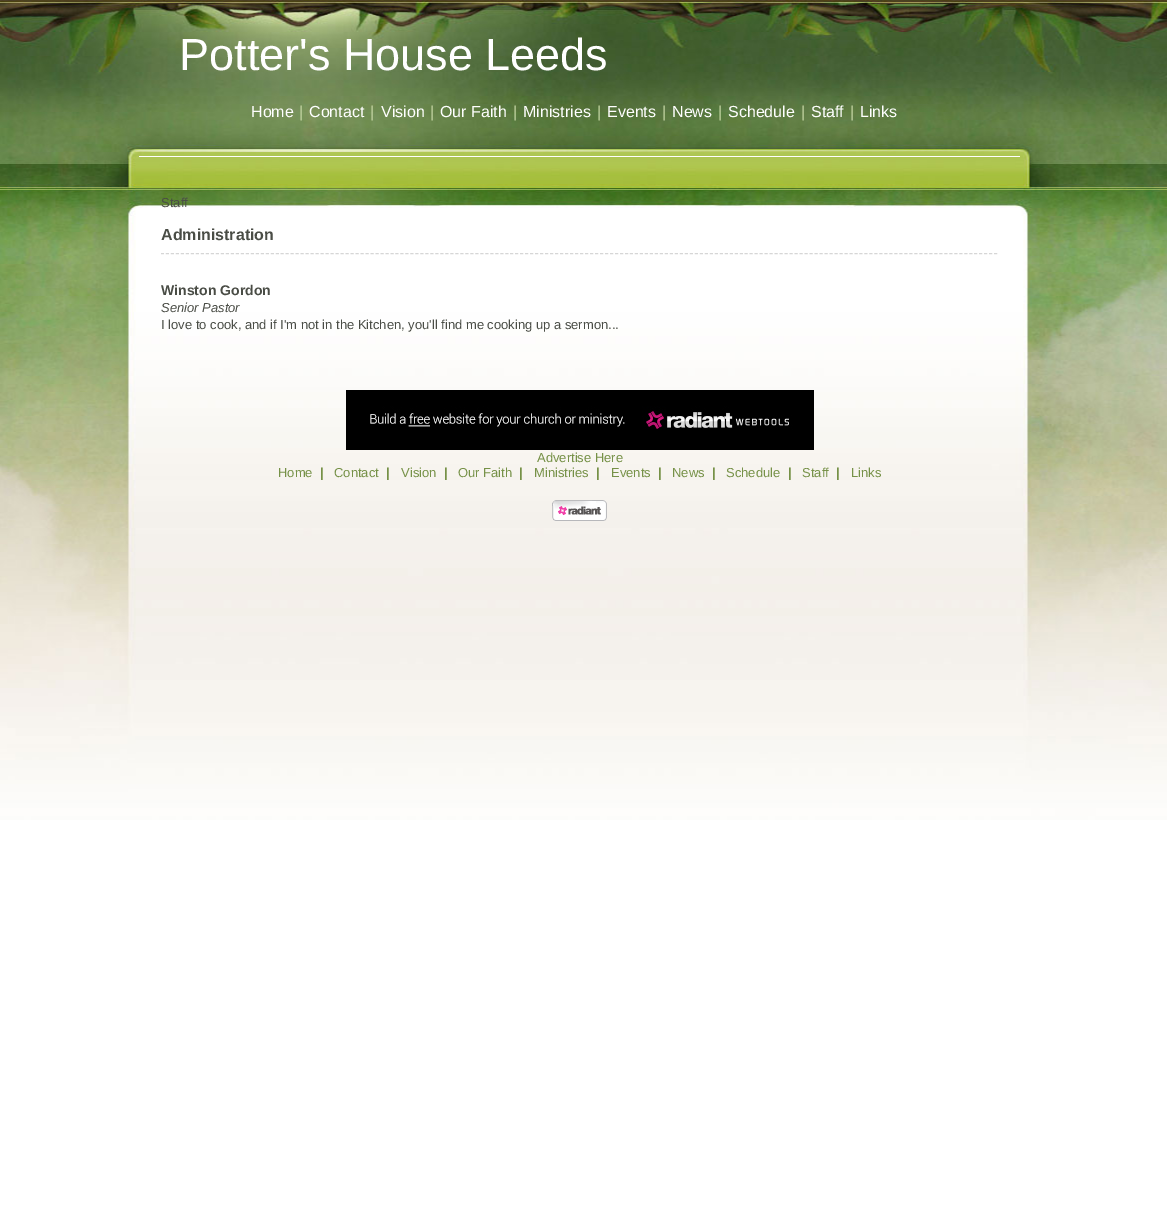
%!PS-Adobe-3.0
%%BoundingBox: 0 0 1167 1206
%%LanguageLevel: 3
%%Pages: 1
%%EndComments
%%BeginProlog
/setink { dup -16 bitshift 255 div exch dup -8 bitshift 255 and 255 div exch 255 and 255 div setrgbcolor } def
/usefont { [ exch dup neg 0 0 3 -1 roll 0 0 ] selectfont } def
/drawimage { 5 dict begin { /h /w /y /x /name } { exch def } forall
  gsave x y translate w h scale
  w h 8 [w 0 0 h 0 0] name (r) file false 3 colorimage grestore end } def
%%EndProlog
%%BeginSetup
<< /PageSize [1167 1206] >> setpagedevice
%%EndSetup
%%Page: 1 1
0 1206 translate 1 -1 scale
4 setmiterlimit
16#FFFFFF setink
0 0 1167 1206 rectfill
(img1.raw) 0 0 1167 820 drawimage
/LiberationSans-Regular 45 usefont
179 70 moveto (Potter's House Leeds) show
/LiberationSans-Regular 16 usefont
251 117 moveto (Home) show
16#C5D6A4 setink
299 117 moveto (|) show
16#FFFFFF setink
309 117 moveto (Contact) show
16#C5D6A4 setink
370 117 moveto (|) show
16#FFFFFF setink
381 117 moveto (Vision) show
16#C5D6A4 setink
430 117 moveto (|) show
16#FFFFFF setink
440 117 moveto (Our Faith) show
16#C5D6A4 setink
513 117 moveto (|) show
16#FFFFFF setink
523 117 moveto (Ministries) show
16#C5D6A4 setink
597 117 moveto (|) show
16#FFFFFF setink
607 117 moveto (Events) show
16#C5D6A4 setink
662 117 moveto (|) show
16#FFFFFF setink
672 117 moveto (News) show
16#C5D6A4 setink
718 117 moveto (|) show
16#FFFFFF setink
728 117 moveto (Schedule) show
16#C5D6A4 setink
801 117 moveto (|) show
16#FFFFFF setink
811 117 moveto (Staff) show
16#C5D6A4 setink
850 117 moveto (|) show
16#FFFFFF setink
860 117 moveto (Links) show
139 156 881 1 rectfill
/LiberationSans-Regular 13 usefont
16#4A4D46 setink
161 207 moveto (Staff) show
/LiberationSans-Bold 16 usefont
161 240 moveto (Administration) show
16#D6D6D6 setink
[3 1.99] 0 setdash
161 253.5 moveto 998 253.5 lineto stroke
/LiberationSans-Bold 14 usefont
16#4A4D46 setink
161 295 moveto (Winston Gordon) show
/LiberationSans-Italic 13 usefont
161 312 moveto (Senior Pastor) show
/LiberationSans-Regular 13 usefont
161 329 moveto (I love to cook, and if I'm not in the Kitchen, you'll find me cooking up a sermon...) show
(img2.raw) 346 390 468 60 drawimage
16#769147 setink
537 462 moveto (Advertise Here) show
278 477 moveto (Home) show
/LiberationSans-Bold 13 usefont
320 477 moveto (|) show
/LiberationSans-Regular 13 usefont
334 477 moveto (Contact) show
/LiberationSans-Bold 13 usefont
386 477 moveto (|) show
/LiberationSans-Regular 13 usefont
401 477 moveto (Vision) show
/LiberationSans-Bold 13 usefont
444 477 moveto (|) show
/LiberationSans-Regular 13 usefont
458 477 moveto (Our Faith) show
/LiberationSans-Bold 13 usefont
519 477 moveto (|) show
/LiberationSans-Regular 13 usefont
534 477 moveto (Ministries) show
/LiberationSans-Bold 13 usefont
596 477 moveto (|) show
/LiberationSans-Regular 13 usefont
611 477 moveto (Events) show
/LiberationSans-Bold 13 usefont
658 477 moveto (|) show
/LiberationSans-Regular 13 usefont
672 477 moveto (News) show
/LiberationSans-Bold 13 usefont
712 477 moveto (|) show
/LiberationSans-Regular 13 usefont
726 477 moveto (Schedule) show
/LiberationSans-Bold 13 usefont
788 477 moveto (|) show
/LiberationSans-Regular 13 usefont
802 477 moveto (Staff) show
/LiberationSans-Bold 13 usefont
836 477 moveto (|) show
/LiberationSans-Regular 13 usefont
851 477 moveto (Links) show
(img3.raw) 552 500 55 21 drawimage
showpage
%%EOF
